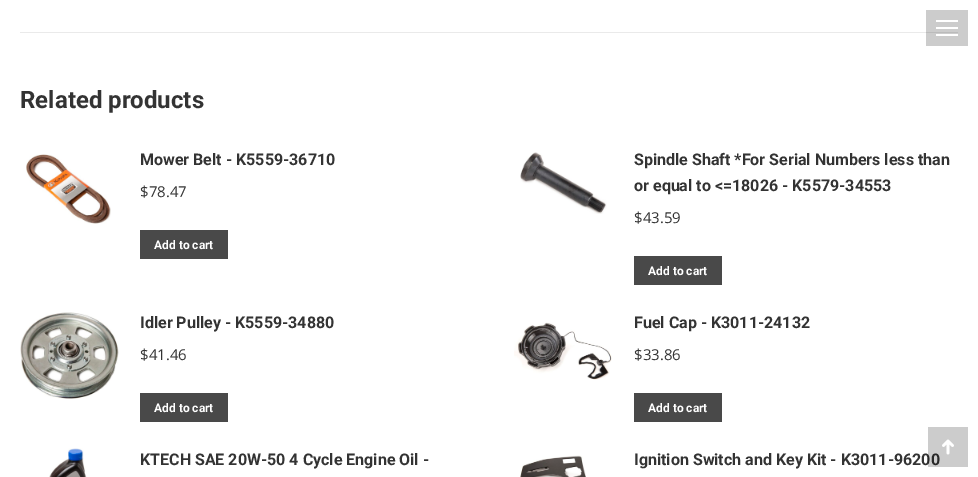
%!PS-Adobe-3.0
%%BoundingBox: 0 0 978 477
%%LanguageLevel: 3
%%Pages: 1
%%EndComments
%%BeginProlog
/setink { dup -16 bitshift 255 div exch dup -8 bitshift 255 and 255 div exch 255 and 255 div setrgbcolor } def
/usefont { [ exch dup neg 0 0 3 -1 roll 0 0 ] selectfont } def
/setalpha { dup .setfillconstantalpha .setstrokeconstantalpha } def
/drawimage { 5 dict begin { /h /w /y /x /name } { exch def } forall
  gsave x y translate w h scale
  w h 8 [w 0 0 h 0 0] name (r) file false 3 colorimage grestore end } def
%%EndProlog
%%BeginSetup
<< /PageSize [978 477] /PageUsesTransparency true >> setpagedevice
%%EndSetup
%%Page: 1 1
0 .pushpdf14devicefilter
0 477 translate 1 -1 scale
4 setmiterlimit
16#FFFFFF setink
0 0 978 477 rectfill
[
    [20 32 938 1 16#EAEAEA]
] { aload pop setink rectfill } forall
0.2 setalpha
[
    [926 10 42 36 16#000000]
] { aload pop setink rectfill } forall
1 setalpha
[
    [936 20 22 2 16#FFFFFF]
    [936 27 22 2 16#FFFFFF]
    [936 34 22 2 16#FFFFFF]
] { aload pop setink rectfill } forall
/Roboto-Bold 24 usefont
16#333333 setink
20 108 moveto (Related products) show
(img1.raw) 26 154 85 70 drawimage
/Roboto-Bold 16 usefont
140 165 moveto (Mower Belt - K5559-36710) show
/OpenSans-Regular 15 usefont
140 197 moveto ($78.47) show
16#494949 setink
140 230 88 29 rectfill
/Roboto-Bold 12 usefont
16#FFFFFF setink
154 249 moveto (Add to cart) show
(img2.raw) 520 152 87 62 drawimage
/Roboto-Bold 16 usefont
16#333333 setink
634 165 moveto (Spindle Shaft *For Serial Numbers less than) show
634 191 moveto (or equal to <=18026 - K5579-34553) show
/OpenSans-Regular 15 usefont
634 223 moveto ($43.59) show
16#494949 setink
634 256 88 29 rectfill
/Roboto-Bold 12 usefont
16#FFFFFF setink
648 275 moveto (Add to cart) show
(img3.raw) 20 312 99 87 drawimage
/Roboto-Bold 16 usefont
16#333333 setink
140 328 moveto (Idler Pulley - K5559-34880) show
/OpenSans-Regular 15 usefont
140 360 moveto ($41.46) show
16#494949 setink
140 393 88 29 rectfill
/Roboto-Bold 12 usefont
16#FFFFFF setink
154 412 moveto (Add to cart) show
(img4.raw) 514 322 98 58 drawimage
/Roboto-Bold 16 usefont
16#333333 setink
634 328 moveto (Fuel Cap - K3011-24132) show
/OpenSans-Regular 15 usefont
634 360 moveto ($33.86) show
16#494949 setink
634 393 88 29 rectfill
/Roboto-Bold 12 usefont
16#FFFFFF setink
648 412 moveto (Add to cart) show
(img5.raw) 49 448 38 29 drawimage
/Roboto-Bold 16 usefont
16#333333 setink
140 465 moveto (KTECH SAE 20W-50 4 Cycle Engine Oil -) show
(img6.raw) 520 455 66 22 drawimage
634 465 moveto (Ignition Switch and Key Kit - K3011-96200) show
0.2 setalpha
16#000000 setink
928 427 40 40 rectfill
1 setalpha
(img7.raw) 942 439 12 16 drawimage
.poppdf14devicefilter showpage
%%EOF
